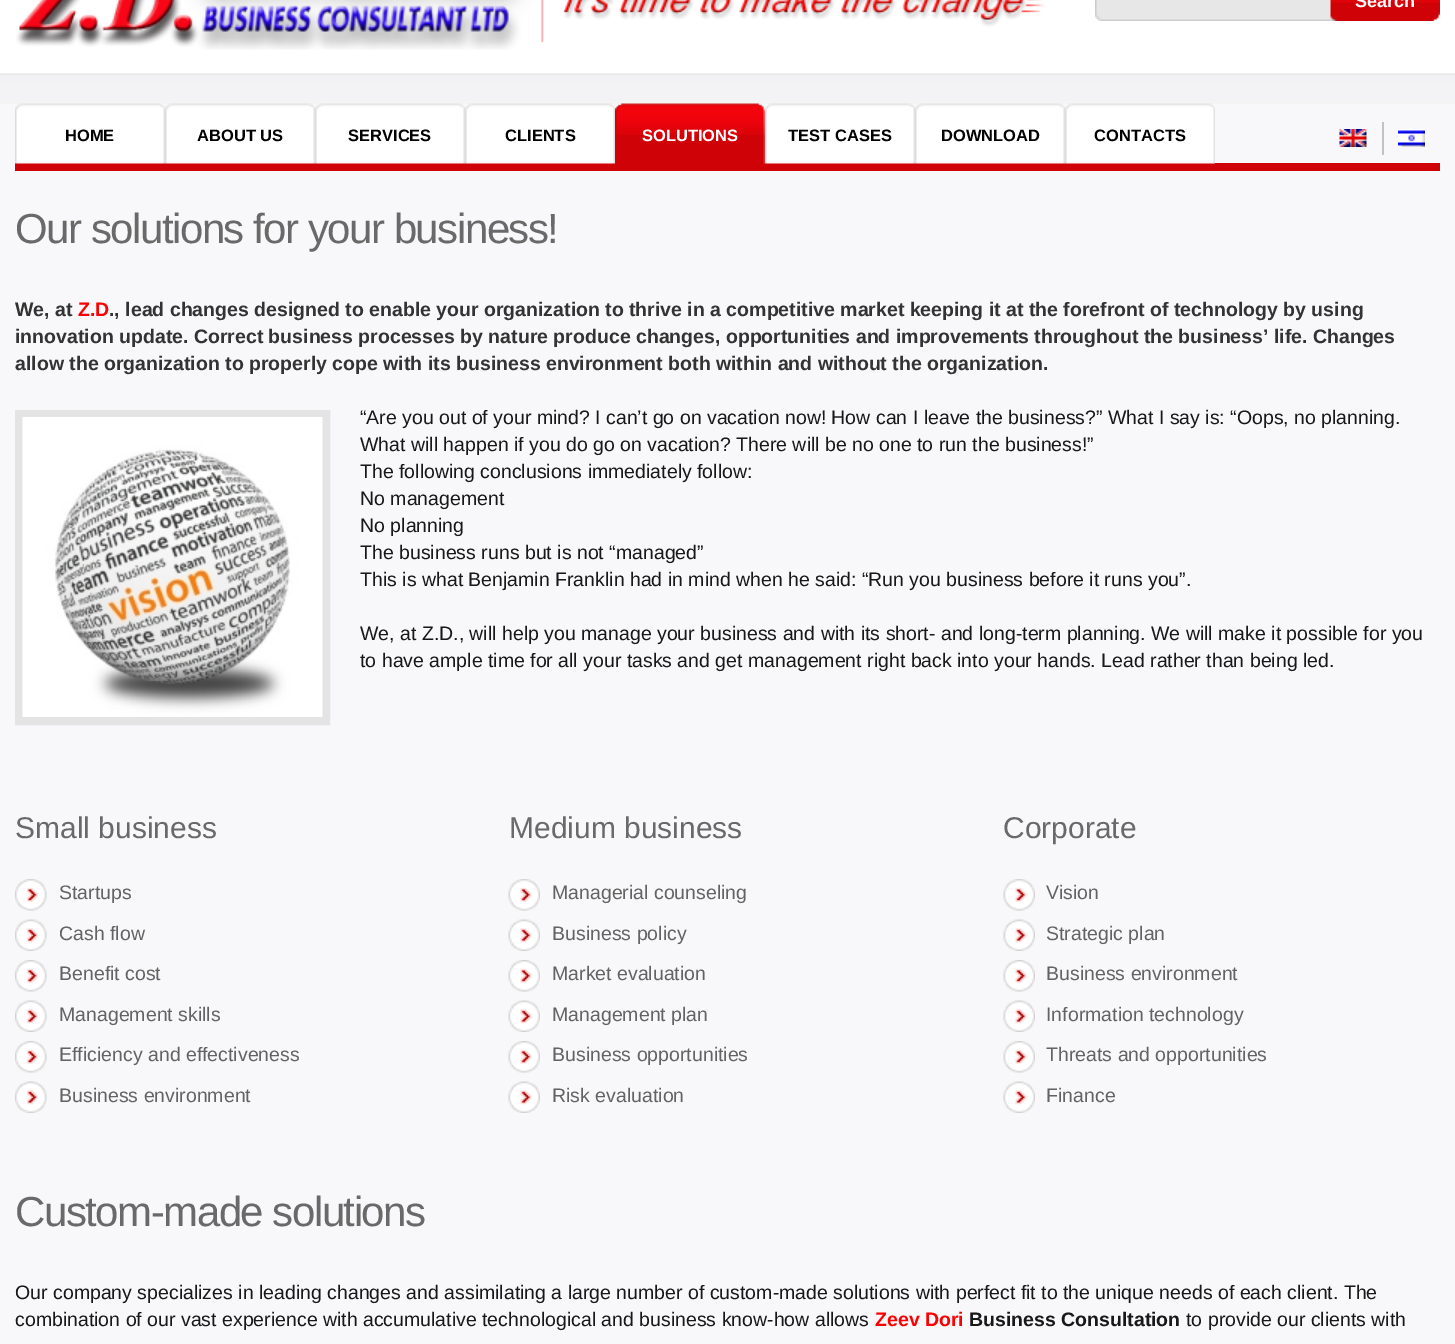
%!PS-Adobe-3.0
%%BoundingBox: 0 0 1455 1344
%%LanguageLevel: 3
%%Pages: 1
%%EndComments
%%BeginProlog
/setink { dup -16 bitshift 255 div exch dup -8 bitshift 255 and 255 div exch 255 and 255 div setrgbcolor } def
/usefont { [ exch dup neg 0 0 3 -1 roll 0 0 ] selectfont } def
/drawimage { 5 dict begin { /h /w /y /x /name } { exch def } forall
  gsave x y translate w h scale
  w h 8 [w 0 0 h 0 0] name (r) file false 3 colorimage grestore end } def
%%EndProlog
%%BeginSetup
<< /PageSize [1455 1344] >> setpagedevice
%%EndSetup
%%Page: 1 1
0 1344 translate 1 -1 scale
4 setmiterlimit
16#F8F8FA setink
0 0 1455 1344 rectfill
(img1.raw) 0 75 1455 29 drawimage
(img2.raw) 0 0 1455 75 drawimage
16#CF0207 setink
15 163 1425 8 rectfill
(img3.raw) 16 0 1028 50 drawimage
(img4.raw) 1095 0 236 21 drawimage
(img5.raw) 1330 0 110 21 drawimage
/LiberationSans-Bold 18 usefont
16#FFFFFF setink
1355 7 moveto (Search) show
(img6.raw) 15 103 150 61 drawimage
/LiberationSans-Bold 16.5 usefont
16#000000 setink
65 141 moveto (HOME) show
(img6.raw) 165 103 150 61 drawimage
197 141 moveto (ABOUT US) show
(img7.raw) 315 103 150 61 drawimage
348 141 moveto (SERVICES) show
(img7.raw) 465 103 150 61 drawimage
505 141 moveto (CLIENTS) show
(img8.raw) 615 103 150 61 drawimage
16#FFFFFF setink
642 141 moveto (SOLUTIONS) show
(img6.raw) 765 103 150 61 drawimage
16#000000 setink
788 141 moveto (TEST CASES) show
(img6.raw) 915 103 150 61 drawimage
941 141 moveto (DOWNLOAD) show
(img7.raw) 1065 103 150 61 drawimage
1094 141 moveto (CONTACTS) show
(img9.raw) 1339 129 28 18 drawimage
16#C1C2C3 setink
1382 122 2 33 rectfill
(img10.raw) 1398 129 27 18 drawimage
/LiberationSans-Regular 42 usefont
16#696969 setink
15 243 moveto -1.5 0 (Our solutions for your business!) ashow
/LiberationSans-Bold 19.5 usefont
16#333333 setink
15 316 moveto (We, at) show
16#FF0000 setink
78 316 moveto (Z.D) show
16#333333 setink
[
    [(., lead changes designed to enable your organization to thrive in a competitive market keeping it at the forefront of technology by using) 109 316]
    [(innovation update. Correct business processes by nature produce changes, opportunities and improvements throughout the business’ life. Changes) 15 343]
    [(allow the organization to properly cope with its business environment both within and without the organization.) 15 370]
] { aload pop moveto show } forall
16#E4E4E4 setink
8 setlinewidth
19 414 307 307 rectstroke
(img11.raw) 22 417 301 300 drawimage
/LiberationSans-Regular 19.5 usefont
16#181819 setink
[
    [(“Are you out of your mind? I can’t go on vacation now! How can I leave the business?” What I say is: “Oops, no planning.) 360 424]
    [(What will happen if you do go on vacation? There will be no one to run the business!”) 360 451]
    [(The following conclusions immediately follow:) 360 478]
    [(No management) 360 505]
    [(No planning) 360 532]
    [(The business runs but is not “managed”) 360 559]
    [(This is what Benjamin Franklin had in mind when he said: “Run you business before it runs you”.) 360 586]
    [(We, at Z.D., will help you manage your business and with its short- and long-term planning. We will make it possible for you) 360 640]
    [(to have ample time for all your tasks and get management right back into your hands. Lead rather than being led.) 360 667]
] { aload pop moveto show } forall
/LiberationSans-Regular 30 usefont
16#696969 setink
15 838 moveto (Small business) show
(img12.raw) 15 879 32 32 drawimage
/LiberationSans-Regular 19.5 usefont
16#636363 setink
59 899 moveto (Startups) show
(img13.raw) 15 919 32 32 drawimage
59 940 moveto (Cash flow) show
(img12.raw) 15 960 32 32 drawimage
59 980 moveto (Benefit cost) show
(img13.raw) 15 1000 32 32 drawimage
59 1021 moveto (Management skills) show
(img12.raw) 15 1041 32 32 drawimage
59 1061 moveto (Efficiency and effectiveness) show
(img13.raw) 15 1081 32 32 drawimage
59 1102 moveto (Business environment) show
/LiberationSans-Regular 30 usefont
16#696969 setink
509 838 moveto (Medium business) show
(img14.raw) 508 879 32 32 drawimage
/LiberationSans-Regular 19.5 usefont
16#636363 setink
552 899 moveto (Managerial counseling) show
(img15.raw) 508 919 32 32 drawimage
552 940 moveto (Business policy) show
(img14.raw) 508 960 32 32 drawimage
552 980 moveto (Market evaluation) show
(img15.raw) 508 1000 32 32 drawimage
552 1021 moveto (Management plan) show
(img14.raw) 508 1041 32 32 drawimage
552 1061 moveto (Business opportunities) show
(img15.raw) 508 1081 32 32 drawimage
552 1102 moveto (Risk evaluation) show
/LiberationSans-Regular 30 usefont
16#696969 setink
1003 838 moveto (Corporate) show
(img14.raw) 1003 879 32 32 drawimage
/LiberationSans-Regular 19.5 usefont
16#636363 setink
1046 899 moveto (Vision) show
(img15.raw) 1003 919 32 32 drawimage
1046 940 moveto (Strategic plan) show
(img14.raw) 1003 960 32 32 drawimage
1046 980 moveto (Business environment) show
(img15.raw) 1003 1000 32 32 drawimage
1046 1021 moveto (Information technology) show
(img14.raw) 1003 1041 32 32 drawimage
1046 1061 moveto (Threats and opportunities) show
(img15.raw) 1003 1081 32 32 drawimage
1046 1102 moveto (Finance) show
/LiberationSans-Regular 42 usefont
16#696969 setink
15 1226 moveto -1.5 0 (Custom-made solutions) ashow
/LiberationSans-Regular 19.5 usefont
16#181819 setink
15 1299 moveto (Our company specializes in leading changes and assimilating a large number of custom-made solutions with perfect fit to the unique needs of each client. The) show
15 1326 moveto (combination of our vast experience with accumulative technological and business know-how allows) show
/LiberationSans-Bold 19.5 usefont
16#FF0000 setink
875 1326 moveto (Zeev Dori) show
16#181819 setink
969 1326 moveto (Business Consultation) show
/LiberationSans-Regular 19.5 usefont
1186 1326 moveto (to provide our clients with) show
showpage
%%EOF
